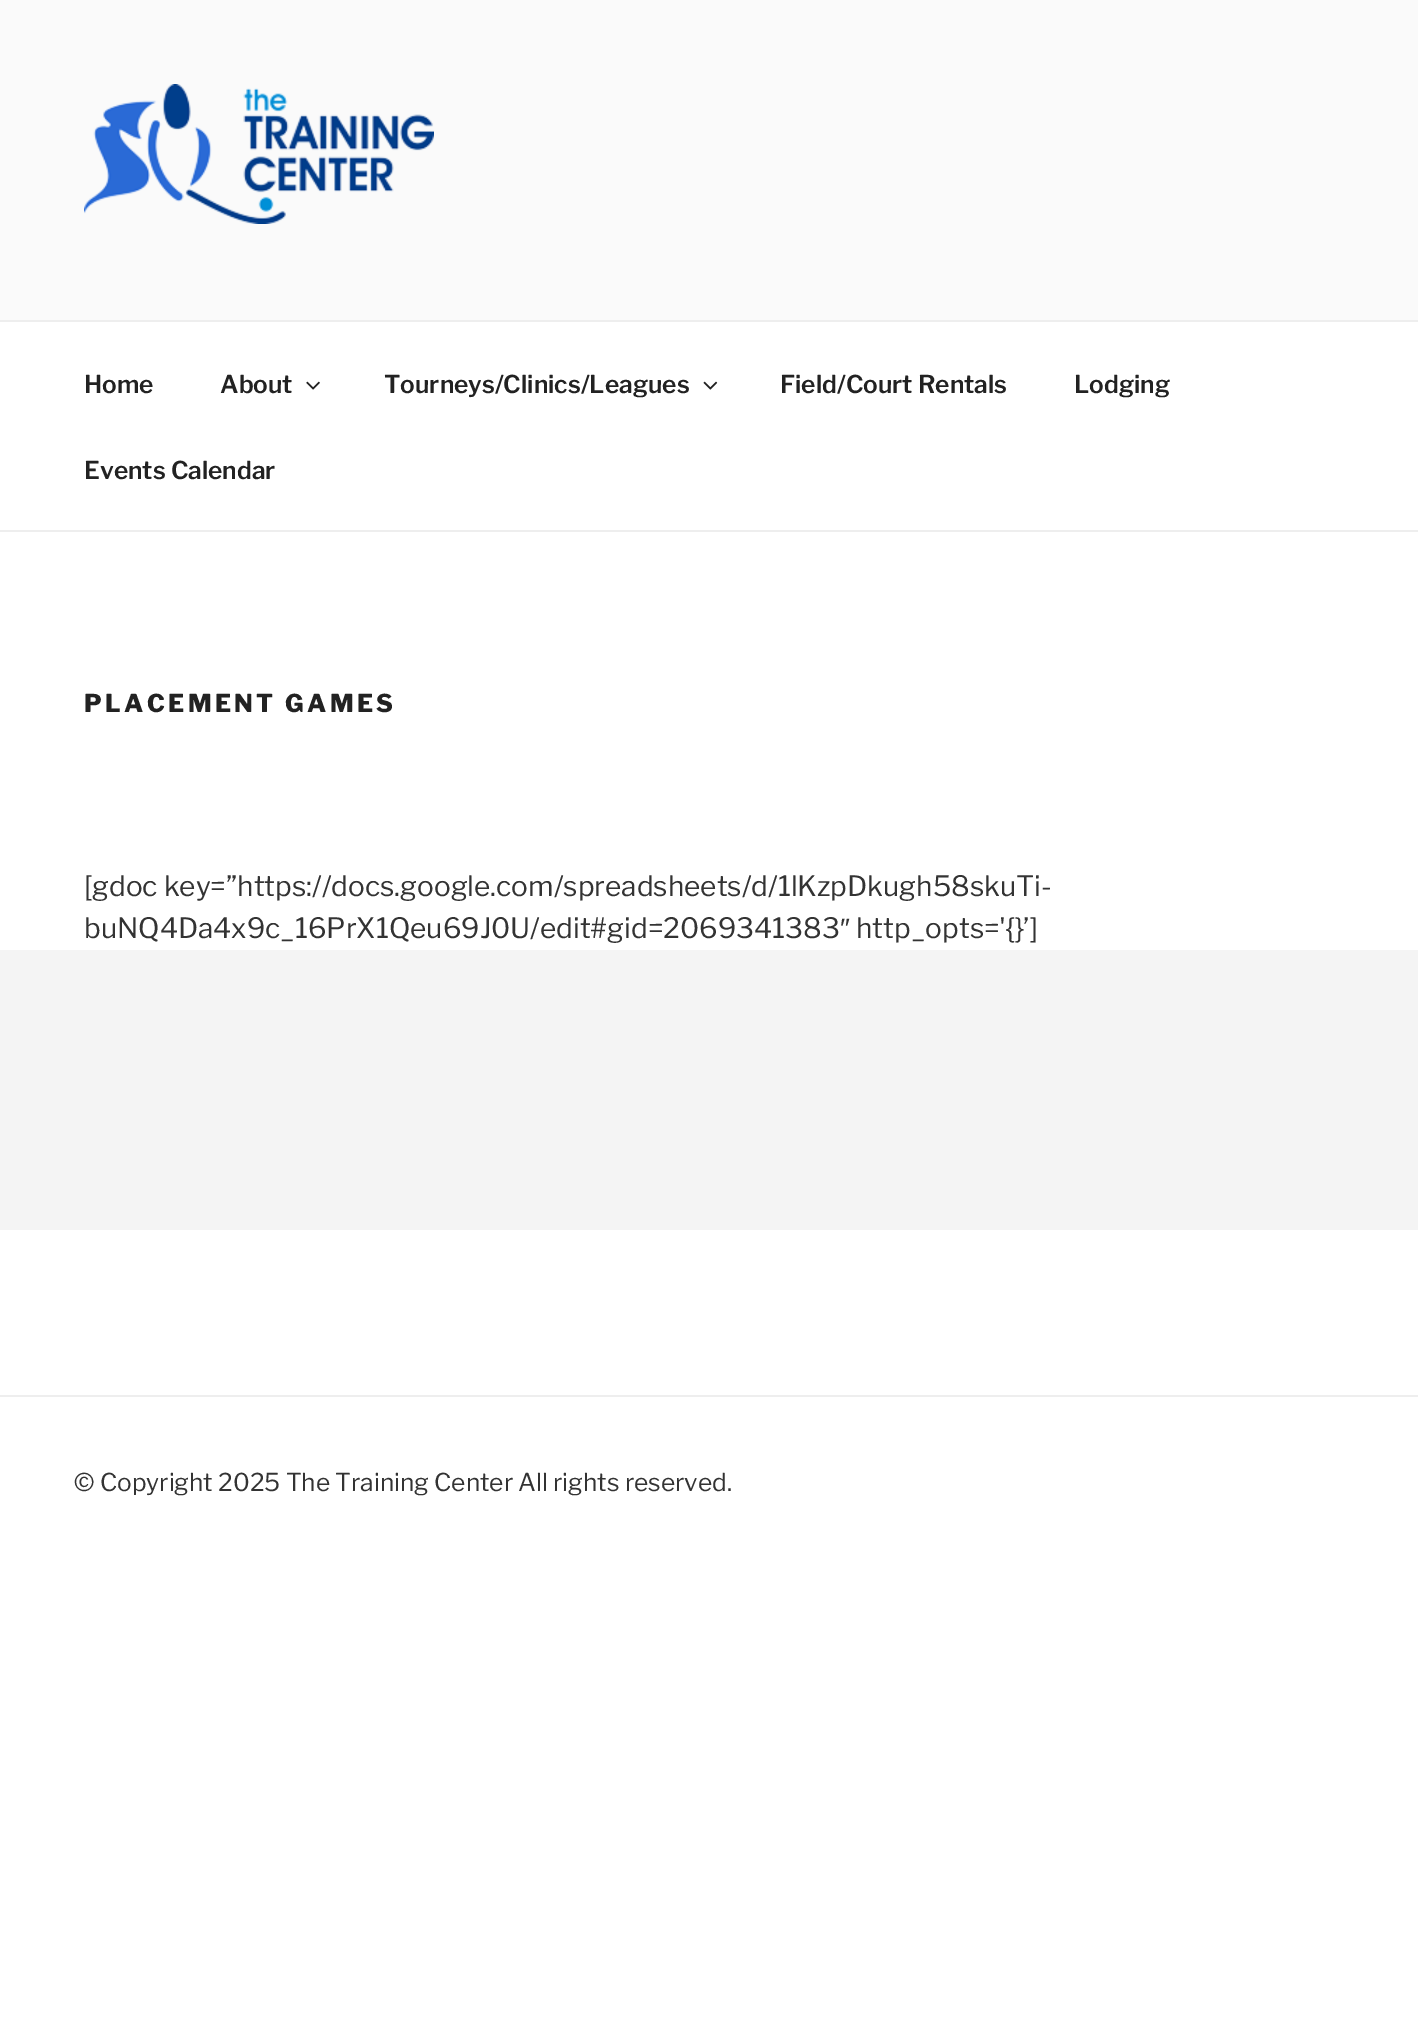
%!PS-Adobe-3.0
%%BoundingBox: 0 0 1418 2024
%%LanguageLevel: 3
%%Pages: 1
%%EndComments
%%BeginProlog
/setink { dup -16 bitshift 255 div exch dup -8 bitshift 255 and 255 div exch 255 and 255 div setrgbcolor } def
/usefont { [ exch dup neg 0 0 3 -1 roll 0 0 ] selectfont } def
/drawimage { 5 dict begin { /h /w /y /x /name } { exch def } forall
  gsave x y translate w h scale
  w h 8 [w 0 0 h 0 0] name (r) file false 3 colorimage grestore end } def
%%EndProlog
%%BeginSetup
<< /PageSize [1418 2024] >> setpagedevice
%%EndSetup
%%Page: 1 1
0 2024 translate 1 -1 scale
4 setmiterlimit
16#FFFFFF setink
0 0 1418 2024 rectfill
16#FAFAFA setink
0 0 1418 320 rectfill
(img1.raw) 84 84 350 140 drawimage
16#EEEEEE setink
0 320 1418 2 rectfill
0 530 1418 2 rectfill
/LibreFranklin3-Thin 24.5 usefont
16#222222 setink
84 393 moveto (Home) show
220 393 moveto (About) show
(img2.raw) 306 381 14 9 drawimage
384 393 moveto (Tourneys/Clinics/Leagues) show
(img3.raw) 703 381 15 9 drawimage
[
    [(Field/Court Rentals) 780 393]
    [(Lodging) 1074 393]
    [(Events Calendar) 84 479]
] { aload pop moveto show } forall
/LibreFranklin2-Thin 24.5 usefont
84 712 moveto 3.4 0 (PLACEMENT GAMES) ashow
/LibreFranklin-Thin 28 usefont
16#333333 setink
84 896 moveto ([gdoc key=”https://docs.google.com/spreadsheets/d/1lKzpDkugh58skuTi-) show
84 938 moveto (buNQ4Da4x9c_16PrX1Qeu69J0U/edit#gid=2069341383) show
/LiberationSans-Regular 28 usefont
840 938 moveto (″) show
/LibreFranklin-Thin 28 usefont
856 938 moveto (http_opts='{}’]) show
16#F4F4F4 setink
0 950 1418 280 rectfill
16#EEEEEE setink
0 1395 1418 2 rectfill
/LibreFranklin-Thin 24.5 usefont
16#333333 setink
74 1491 moveto (© Copyright 2025 The Training Center All rights reserved.) show
showpage
%%EOF
